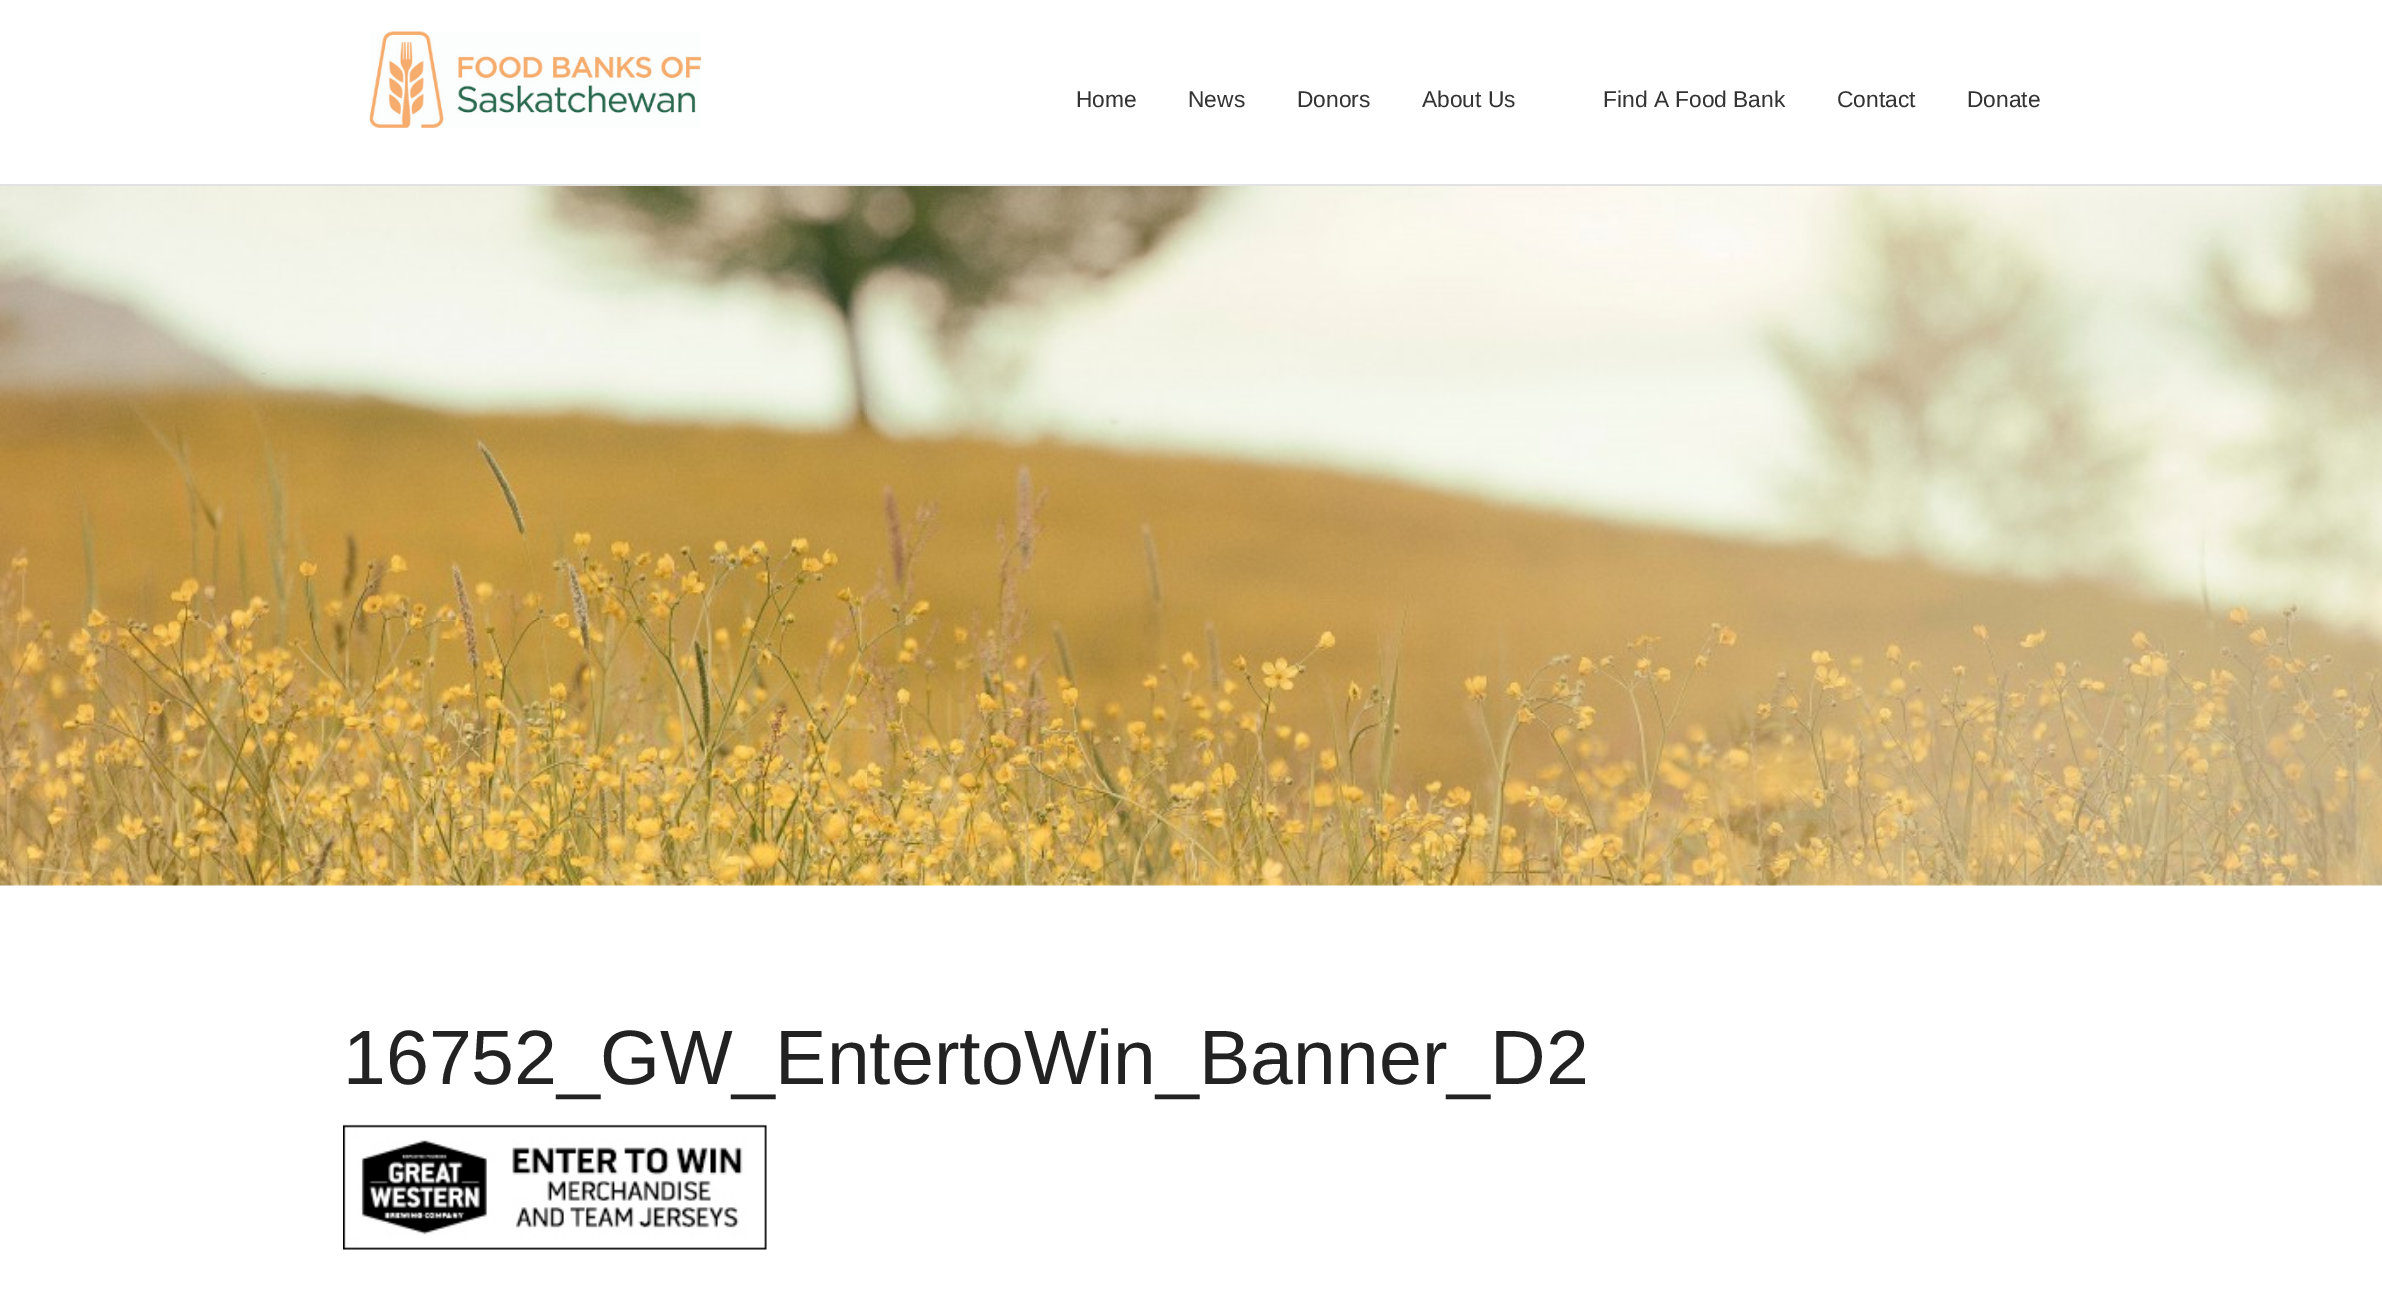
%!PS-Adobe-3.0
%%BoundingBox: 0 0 2382 1295
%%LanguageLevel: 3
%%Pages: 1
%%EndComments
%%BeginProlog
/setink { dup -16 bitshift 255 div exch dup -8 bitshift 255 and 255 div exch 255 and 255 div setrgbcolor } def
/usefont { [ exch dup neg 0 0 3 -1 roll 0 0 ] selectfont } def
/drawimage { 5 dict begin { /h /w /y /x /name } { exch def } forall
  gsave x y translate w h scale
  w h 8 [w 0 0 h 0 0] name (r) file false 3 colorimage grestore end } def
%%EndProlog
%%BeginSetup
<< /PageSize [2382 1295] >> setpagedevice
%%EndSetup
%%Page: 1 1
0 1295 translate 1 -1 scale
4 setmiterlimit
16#FFFFFF setink
0 0 2382 1295 rectfill
16#E2E2E2 setink
0 184 2382 2 rectfill
(img1.raw) 369 31 333 97 drawimage
/LiberationSans-Regular 22.75 usefont
16#333333 setink
[
    [(Home) 1076 107]
    [(News) 1188 107]
    [(Donors) 1297 107]
    [(About Us) 1422 107]
    [(Find A Food Bank) 1603 107]
    [(Contact) 1837 107]
    [(Donate) 1967 107]
] { aload pop moveto show } forall
(img2.raw) 0 186 2382 700 drawimage
/LiberationSans-Regular 77 usefont
16#222222 setink
343 1084 moveto (16752_GW_EntertoWin_Banner_D2) show
(img3.raw) 343 1124 424 126 drawimage
showpage
%%EOF
